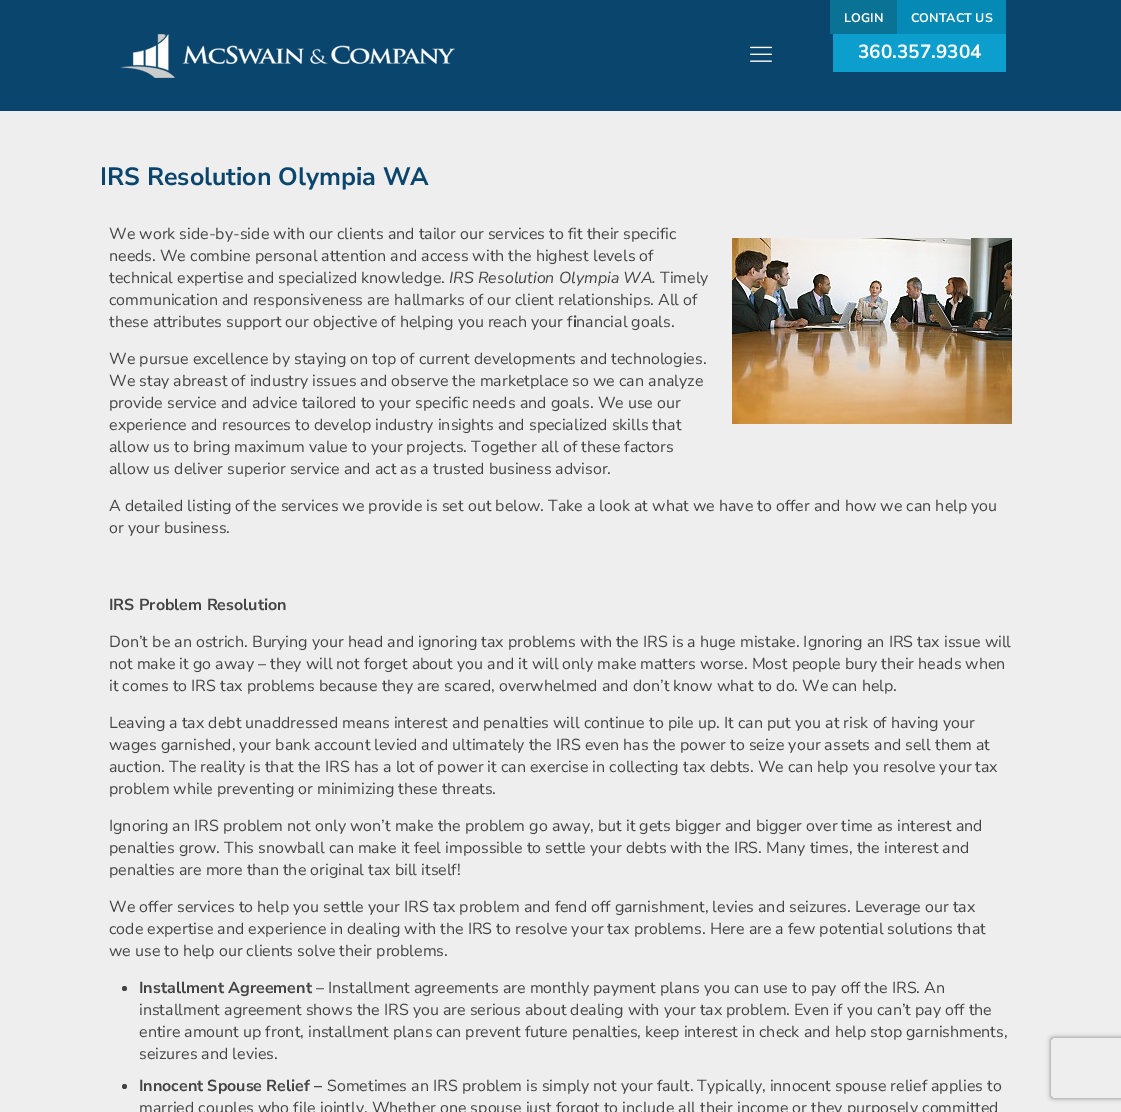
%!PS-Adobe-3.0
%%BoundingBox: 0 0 1121 1112
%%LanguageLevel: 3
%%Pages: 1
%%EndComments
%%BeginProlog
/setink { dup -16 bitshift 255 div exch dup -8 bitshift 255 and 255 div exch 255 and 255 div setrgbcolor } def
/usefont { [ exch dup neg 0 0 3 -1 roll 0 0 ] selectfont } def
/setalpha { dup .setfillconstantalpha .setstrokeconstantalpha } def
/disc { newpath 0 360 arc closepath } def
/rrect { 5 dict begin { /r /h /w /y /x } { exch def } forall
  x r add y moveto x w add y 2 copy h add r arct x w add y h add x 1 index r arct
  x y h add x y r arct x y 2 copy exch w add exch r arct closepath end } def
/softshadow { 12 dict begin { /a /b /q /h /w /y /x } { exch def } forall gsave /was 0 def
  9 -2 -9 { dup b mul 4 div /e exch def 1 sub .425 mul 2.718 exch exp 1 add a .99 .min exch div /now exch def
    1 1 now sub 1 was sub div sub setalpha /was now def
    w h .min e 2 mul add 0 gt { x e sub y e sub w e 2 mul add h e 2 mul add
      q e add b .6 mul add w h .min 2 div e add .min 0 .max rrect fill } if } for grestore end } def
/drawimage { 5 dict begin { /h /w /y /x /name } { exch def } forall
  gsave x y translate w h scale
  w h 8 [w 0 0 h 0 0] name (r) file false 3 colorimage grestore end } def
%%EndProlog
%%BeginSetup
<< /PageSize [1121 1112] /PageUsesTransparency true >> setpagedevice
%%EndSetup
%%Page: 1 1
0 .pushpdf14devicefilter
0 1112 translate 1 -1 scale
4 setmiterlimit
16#EEEEEE setink
0 0 1121 1112 rectfill
16#09456C setink
0 0 1121 111 rectfill
16#0A7395 setink
830 0 67 34 rectfill
/NunitoSans-Bold 12.5 usefont
16#FFFFFF setink
844 22 moveto (LOGIN) show
16#058AB5 setink
897 0 109 34 rectfill
16#FFFFFF setink
911 22 moveto (CONTACT US) show
(img1.raw) 120 34 335 44 drawimage
(img2.raw) 750 46 22 16 drawimage
16#0C9ECD setink
833 34 173 38 rectfill
/NunitoSans-Bold 19 usefont
16#FFFFFF setink
858 58 moveto (360.357.9304) show
/NunitoSans-Bold 25 usefont
16#09456C setink
100 185 moveto (IRS Resolution Olympia WA) show
/NunitoSans-Regular 16 usefont
16#444444 setink
[
    [(We work side-by-side with our clients and tailor our services to fit their specific) 109 239]
    [(needs. We combine personal attention and access with the highest levels of) 109 261]
    [(technical expertise and specialized knowledge.) 109 283]
] { aload pop moveto show } forall
/NunitoSans-ExtraLightItalic 16 usefont
449 283 moveto (IRS Resolution Olympia WA.) show
/NunitoSans-Regular 16 usefont
[
    [(Timely) 660 283]
    [(communication and responsiveness are hallmarks of our client relationships. All of) 109 305]
    [(these attributes support our objective of helping you reach your f nancial goals.) 109 327]
] { aload pop moveto show } forall
/NunitoSans-Bold 16 usefont
573 327 moveto (i) show
(img3.raw) 732 238 280 186 drawimage
/NunitoSans-Regular 16 usefont
[
    [(We pursue excellence by staying on top of current developments and technologies.) 109 364]
    [(We stay abreast of industry issues and observe the marketplace so we can analyze) 109 386]
    [(provide service and advice tailored to your specific needs and goals. We use our) 109 408]
    [(experience and resources to develop industry insights and specialized skills that) 109 430]
    [(allow us to bring maximum value to your projects. Together all of these factors) 109 452]
    [(allow us deliver superior service and act as a trusted business advisor.) 109 474]
    [(A detailed listing of the services we provide is set out below. Take a look at what we have to offer and how we can help you) 109 511]
    [(or your business.) 109 533]
] { aload pop moveto show } forall
/NunitoSans-Bold 16 usefont
109 610 moveto (IRS Problem Resolution) show
/NunitoSans-Regular 16 usefont
[
    [(Don’t be an ostrich. Burying your head and ignoring tax problems with the IRS is a huge mistake. Ignoring an IRS tax issue will) 109 647]
    [(not make it go away – they will not forget about you and it will only make matters worse. Most people bury their heads when) 109 669]
    [(it comes to IRS tax problems because they are scared, overwhelmed and don’t know what to do. We can help.) 109 691]
    [(Leaving a tax debt unaddressed means interest and penalties will continue to pile up. It can put you at risk of having your) 109 728]
    [(wages garnished, your bank account levied and ultimately the IRS even has the power to seize your assets and sell them at) 109 750]
    [(auction. The reality is that the IRS has a lot of power it can exercise in collecting tax debts. We can help you resolve your tax) 109 772]
    [(problem while preventing or minimizing these threats.) 109 794]
    [(Ignoring an IRS problem not only won’t make the problem go away, but it gets bigger and bigger over time as interest and) 109 831]
    [(penalties grow. This snowball can make it feel impossible to settle your debts with the IRS. Many times, the interest and) 109 853]
    [(penalties are more than the original tax bill itself!) 109 875]
    [(We offer services to help you settle your IRS tax problem and fend off garnishment, levies and seizures. Leverage our tax) 109 912]
    [(code expertise and experience in dealing with the IRS to resolve your tax problems. Here are a few potential solutions that) 109 934]
    [(we use to help our clients solve their problems.) 109 956]
] { aload pop moveto show } forall
124.5 988.5 2.5 disc fill
/NunitoSans-Bold 16 usefont
139 993 moveto (Installment Agreement) show
/NunitoSans-Regular 16 usefont
[
    [(– Installment agreements are monthly payment plans you can use to pay off the IRS. An) 316 993]
    [(installment agreement shows the IRS you are serious about dealing with your tax problem. Even if you can’t pay off the) 139 1015]
    [(entire amount up front, installment plans can prevent future penalties, keep interest in check and help stop garnishments,) 139 1037]
    [(seizures and levies.) 139 1059]
] { aload pop moveto show } forall
124.5 1086.5 2.5 disc fill
/NunitoSans-Bold 16 usefont
139 1091 moveto (Innocent Spouse Relief –) show
/NunitoSans-Regular 16 usefont
327 1091 moveto (Sometimes an IRS problem is simply not your fault. Typically, innocent spouse relief applies to) show
139 1113 moveto (married couples who file jointly. Whether one spouse just forgot to include all their income or they purposely committed) show
gsave
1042 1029 moveto 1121 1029 lineto 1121 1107 lineto 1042 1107 lineto closepath 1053 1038 moveto 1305 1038 lineto 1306 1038 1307 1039 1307 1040 curveto 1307 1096 lineto 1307 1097 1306 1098 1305 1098 curveto 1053 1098 lineto 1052 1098 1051 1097 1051 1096 curveto 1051 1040 lineto 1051 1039 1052 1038 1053 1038 curveto closepath eoclip newpath
16#808080 setink
1051 1038 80 60 2 2.5 1 softshadow
grestore
.poppdf14devicefilter showpage
%%EOF
